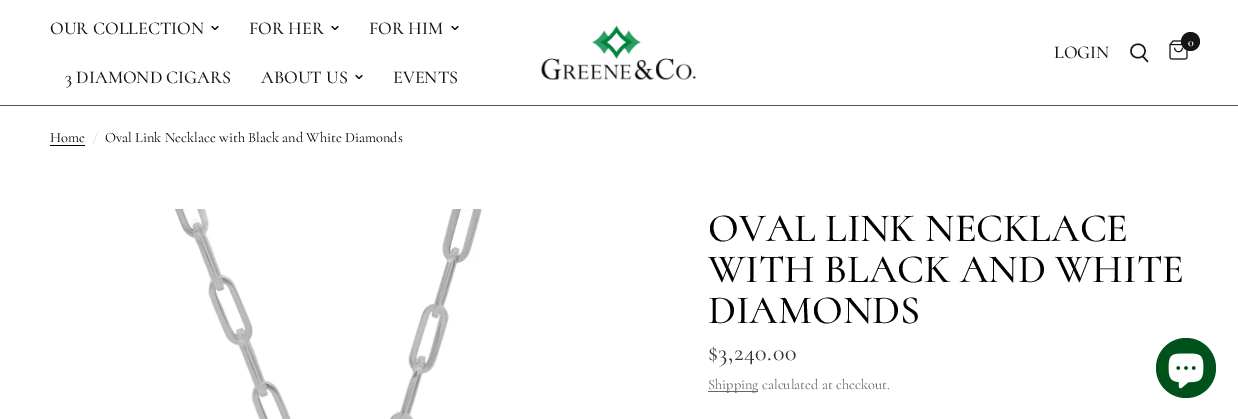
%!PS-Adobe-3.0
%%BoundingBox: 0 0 1238 419
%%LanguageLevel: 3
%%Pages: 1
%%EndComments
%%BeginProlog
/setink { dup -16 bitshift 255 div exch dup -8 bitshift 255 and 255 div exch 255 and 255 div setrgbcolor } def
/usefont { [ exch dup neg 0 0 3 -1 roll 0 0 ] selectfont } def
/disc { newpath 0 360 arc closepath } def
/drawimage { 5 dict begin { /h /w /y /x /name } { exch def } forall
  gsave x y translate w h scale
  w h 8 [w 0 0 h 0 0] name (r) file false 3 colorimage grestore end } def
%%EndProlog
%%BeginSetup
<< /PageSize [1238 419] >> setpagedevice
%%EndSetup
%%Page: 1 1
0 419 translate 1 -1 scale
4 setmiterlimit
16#FFFFFF setink
0 0 1238 419 rectfill
16#4E584A setink
0 105 1238 1 rectfill
/Cormorant-Medium 18 usefont
16#151515 setink
50 34 moveto (OUR COLLECTION) show
1.1 setlinewidth
1 setlinecap
1 setlinejoin
218 26.5 moveto 215 29.5 lineto 212 26.5 lineto stroke
249 34 moveto (FOR HER) show
338 26.5 moveto 335 29.5 lineto 332 26.5 lineto stroke
369 34 moveto (FOR HIM) show
458 26.5 moveto 455 29.5 lineto 452 26.5 lineto stroke
65 83 moveto (3 DIAMOND CIGARS) show
261 83 moveto (ABOUT US) show
362 75.5 moveto 359 78.5 lineto 356 75.5 lineto stroke
393 83 moveto (EVENTS) show
(img1.raw) 541 25 156 55 drawimage
1054 58 moveto (LOGIN) show
1.4 setlinewidth
1143 56.5 moveto 1147.5 61.5 lineto 1145 51 moveto 1145 60 1131 60 1131 51 curveto 1131 42 1145 42 1145 51 curveto closepath stroke
(img2.raw) 1169 40 19 20 drawimage
1190.5 41.5 9.5 disc fill
/Cormorant-SemiBold 12 usefont
16#FFFFFF setink
1188 46 moveto (0) show
/Cormorant-Regular 14.4 usefont
16#000000 setink
50 142 moveto (Home) show
50 145 35 1 rectfill
/Cormorant-Italic 14.4 usefont
16#CCCCCC setink
93 142 moveto (/) show
/Cormorant-Regular 14.4 usefont
16#000000 setink
105 142 moveto (Oval Link Necklace with Black and White Diamonds) show
(img3.raw) 174 209 308 210 drawimage
/Cormorant-Medium 40.25 usefont
[
    [(OVAL LINK NECKLACE) 708 241]
    [(WITH BLACK AND WHITE) 708 282]
    [(DIAMONDS) 708 323]
] { aload pop moveto show } forall
/Cormorant-Regular 24 usefont
16#35302E setink
708 360 moveto 0.5 0 ($3,240.00) ashow
16#666666 setink
708 391 50 1 rectfill
/Cormorant-Regular 14.4 usefont
708 389 moveto (Shipping calculated at checkout.) show
16#00521D setink
1186 368 30 disc fill
(img4.raw) 1168 353 36 36 drawimage
showpage
%%EOF
